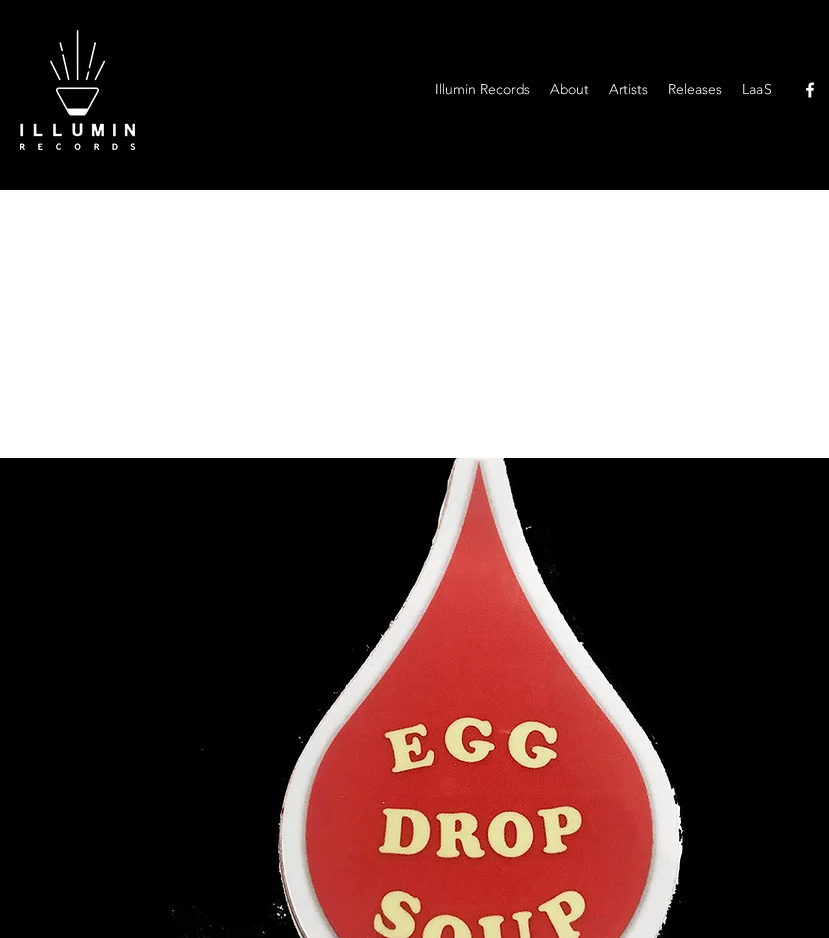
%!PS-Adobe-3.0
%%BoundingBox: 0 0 829 938
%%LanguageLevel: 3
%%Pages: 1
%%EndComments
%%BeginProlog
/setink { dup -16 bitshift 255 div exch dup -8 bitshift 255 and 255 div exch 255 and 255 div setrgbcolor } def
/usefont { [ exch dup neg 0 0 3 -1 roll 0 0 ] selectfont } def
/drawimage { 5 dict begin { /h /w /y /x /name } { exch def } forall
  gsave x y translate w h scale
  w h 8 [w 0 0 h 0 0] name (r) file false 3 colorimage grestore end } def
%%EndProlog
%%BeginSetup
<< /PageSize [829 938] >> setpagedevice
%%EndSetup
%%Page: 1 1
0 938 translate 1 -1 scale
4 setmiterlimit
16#FFFFFF setink
0 0 829 938 rectfill
16#000000 setink
0 0 829 190 rectfill
(img1.raw) 20 30 115 120 drawimage
/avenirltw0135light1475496-Light 14 usefont
16#FFFFFF setink
[
    [(Illumin Records) 435 94]
    [(About) 550 94]
    [(Artists) 609 94]
    [(Releases) 668 94]
    [(LaaS) 742 94]
] { aload pop moveto show } forall
(img2.raw) 806 82 9 16 drawimage
(img3.raw) 0 458 829 480 drawimage
showpage
%%EOF
